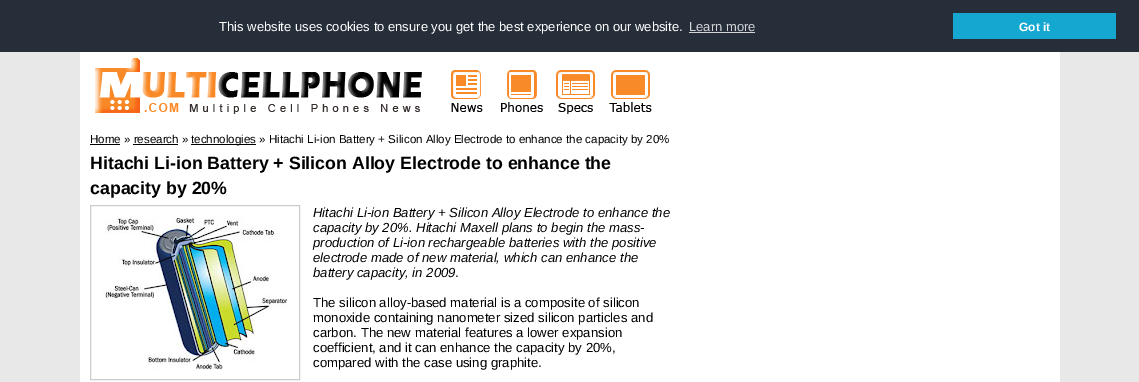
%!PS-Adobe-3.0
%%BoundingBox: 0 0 1139 382
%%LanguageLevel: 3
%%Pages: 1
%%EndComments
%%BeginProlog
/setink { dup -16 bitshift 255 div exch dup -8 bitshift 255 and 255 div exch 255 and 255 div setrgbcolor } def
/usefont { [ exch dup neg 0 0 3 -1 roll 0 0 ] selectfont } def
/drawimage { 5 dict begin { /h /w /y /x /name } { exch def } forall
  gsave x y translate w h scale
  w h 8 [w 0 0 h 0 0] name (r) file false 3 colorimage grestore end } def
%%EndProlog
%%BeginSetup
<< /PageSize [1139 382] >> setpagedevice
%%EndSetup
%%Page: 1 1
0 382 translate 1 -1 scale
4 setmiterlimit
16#E8E8E8 setink
0 0 1139 382 rectfill
16#252E39 setink
0 0 1139 52 rectfill
/LiberationSans-Regular 13 usefont
16#FFFFFF setink
219 31 moveto (This website uses cookies to ensure you get the best experience on our website.) show
16#D3D5D7 setink
689 31 moveto (Learn more) show
689 32 66 1 rectfill
16#14A7D0 setink
953 13 163 26 rectfill
/LiberationSans-Bold 12 usefont
16#FFFFFF setink
1019 31 moveto (Got it) show
80 52 980 330 rectfill
(img1.raw) 95 58 327 56 drawimage
(img2.raw) 451 70 32 42 drawimage
(img3.raw) 501 70 42 42 drawimage
(img4.raw) 556 70 39 44 drawimage
(img5.raw) 609 70 43 42 drawimage
/LiberationSans-Regular 11.55 usefont
16#000000 setink
90 143 moveto (Home » research ») show
90 144 30 1 rectfill
191 144 65 1 rectfill
191 143 moveto (technologies » Hitachi Li-ion Battery + Silicon Alloy Electrode to enhance the capacity by 20%) show
133 144 45 1 rectfill
/LiberationSans-Bold 17.75 usefont
90 169 moveto (Hitachi Li-ion Battery + Silicon Alloy Electrode to enhance the) show
90 194 moveto (capacity by 20%) show
16#CCCCCC setink
90.5 205.5 209 174 rectstroke
(img6.raw) 103 218 184 152 drawimage
/LiberationSans-Italic 13.15 usefont
16#000000 setink
[
    [(Hitachi Li-ion Battery + Silicon Alloy Electrode to enhance the) 313 217]
    [(capacity by 20%. Hitachi Maxell plans to begin the mass-) 313 232]
    [(production of Li-ion rechargeable batteries with the positive) 313 247]
    [(electrode made of new material, which can enhance the) 313 262]
    [(battery capacity, in 2009) 313 277]
] { aload pop moveto show } forall
/LiberationSans-Regular 13.15 usefont
[
    [(.) 455 277]
    [(The silicon alloy-based material is a composite of silicon) 313 307]
    [(monoxide containing nanometer sized silicon particles and) 313 322]
    [(carbon. The new material features a lower expansion) 313 337]
    [(coefficient, and it can enhance the capacity by 20%,) 313 352]
    [(compared with the case using graphite.) 313 367]
] { aload pop moveto show } forall
showpage
%%EOF
